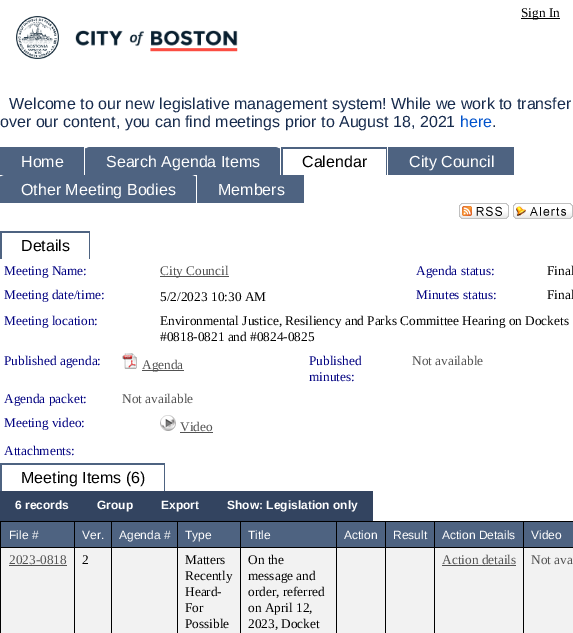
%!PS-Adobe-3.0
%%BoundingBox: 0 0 573 633
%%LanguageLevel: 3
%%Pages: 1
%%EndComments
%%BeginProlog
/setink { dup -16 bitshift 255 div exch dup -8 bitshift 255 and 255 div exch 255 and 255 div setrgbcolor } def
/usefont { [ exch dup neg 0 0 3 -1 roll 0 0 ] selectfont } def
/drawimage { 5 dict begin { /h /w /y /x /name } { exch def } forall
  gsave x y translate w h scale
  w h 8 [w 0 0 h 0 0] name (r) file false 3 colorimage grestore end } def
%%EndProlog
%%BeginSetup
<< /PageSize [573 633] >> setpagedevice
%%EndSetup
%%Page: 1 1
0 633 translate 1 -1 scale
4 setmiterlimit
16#FFFFFF setink
0 0 573 633 rectfill
16#000000 setink
521 18 39 1 rectfill
/LiberationSerif-Regular 13.3 usefont
521 17 moveto (Sign In) show
(img1.raw) 16 16 43 43 drawimage
(img2.raw) 75 30 163 22 drawimage
/LiberationSans-Regular 16 usefont
16#172B4D setink
9 109 moveto (Welcome to our new legislative management system! While we work to transfer) show
0 127 moveto (over our content, you can find meetings prior to August 18, 2021) show
16#0052CC setink
460 127 moveto (here) show
16#172B4D setink
492 127 moveto (.) show
16#4E6381 setink
0 147 84 28 rectfill
16#FFFFFF setink
21 167 moveto (Home) show
(img3.raw) 85 147 195 28 drawimage
106 167 moveto (Search Agenda Items) show
16#4E6381 setink
281 147 106 28 rectfill
16#FFFFFF setink
283 149 103 26 rectfill
16#000000 setink
302 167 moveto (Calendar) show
16#4E6381 setink
388 147 126 28 rectfill
16#FFFFFF setink
409 167 moveto (City Council) show
(img4.raw) 0 175 196 28 drawimage
21 195 moveto (Other Meeting Bodies) show
16#4E6381 setink
197 175 107 28 rectfill
16#FFFFFF setink
218 195 moveto (Members) show
(img5.raw) 459 203 50 16 drawimage
(img6.raw) 513 203 60 16 drawimage
16#4E6381 setink
0 231 90 28 rectfill
16#FFFFFF setink
2 233 87 26 rectfill
16#000000 setink
21 251 moveto (Details) show
/LiberationSerif-Regular 13.3 usefont
16#000080 setink
4 275 moveto (Meeting Name:) show
16#525252 setink
160 276 69 1 rectfill
160 275 moveto (City Council) show
16#000080 setink
416 275 moveto (Agenda status:) show
16#000000 setink
547 275 moveto (Final) show
16#000080 setink
4 299 moveto (Meeting date/time:) show
16#000000 setink
160 301 moveto (5/2/2023) show
211 301 moveto (10:30 AM) show
16#000080 setink
416 299 moveto (Minutes status:) show
16#000000 setink
547 299 moveto (Final) show
16#000080 setink
4 325 moveto (Meeting location:) show
16#000000 setink
160 325 moveto (Environmental Justice, Resiliency and Parks Committee Hearing on Dockets) show
160 341 moveto (#0818-0821 and #0824-0825) show
16#000080 setink
4 365 moveto (Published agenda:) show
(img7.raw) 122 353 15 16 drawimage
16#525252 setink
142 370 42 1 rectfill
142 369 moveto (Agenda) show
16#000080 setink
309 365 moveto (Published) show
309 381 moveto (minutes:) show
16#525252 setink
412 365 moveto (Not available) show
16#000080 setink
4 403 moveto (Agenda packet:) show
16#525252 setink
122 403 moveto (Not available) show
16#000080 setink
4 427 moveto (Meeting video:) show
(img8.raw) 160 415 16 16 drawimage
16#525252 setink
180 431 moveto (Video) show
180 432 33 1 rectfill
16#000080 setink
4 455 moveto (Attachments:) show
16#4E6381 setink
0 463 165 28 rectfill
16#FFFFFF setink
2 465 162 26 rectfill
/LiberationSans-Regular 16 usefont
16#000000 setink
21 483 moveto (Meeting Items \(6\)) show
16#334460 setink
0 491 373 30 rectfill
/LiberationSans-Bold 12 usefont
16#FFFFFF setink
[
    [(6 records) 15 509]
    [(Group) 97 509]
    [(Export) 161 509]
    [(Show: Legislation only) 227 509]
] { aload pop moveto show } forall
16#000000 setink
0.5 521.5 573 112 rectstroke
16#4E6381 setink
1 522 73 25 rectfill
16#000000 setink
1 547 572 1 rectfill
/LiberationSans-Regular 12 usefont
16#FFFFFF setink
9 539 moveto (File #) show
16#4E6381 setink
75 522 36 25 rectfill
16#000000 setink
74 522 1 111 rectfill
16#FFFFFF setink
82 539 moveto (Ver.) show
16#4E6381 setink
112 522 65 25 rectfill
16#000000 setink
111 522 1 111 rectfill
16#FFFFFF setink
119 539 moveto (Agenda #) show
16#4E6381 setink
178 522 62 25 rectfill
16#000000 setink
177 522 1 111 rectfill
16#FFFFFF setink
185 539 moveto (Type) show
16#4E6381 setink
241 522 95 25 rectfill
16#000000 setink
240 522 1 111 rectfill
16#FFFFFF setink
248 539 moveto (Title) show
16#4E6381 setink
337 522 48 25 rectfill
16#000000 setink
336 522 1 111 rectfill
16#FFFFFF setink
344 539 moveto (Action) show
16#4E6381 setink
386 522 48 25 rectfill
16#000000 setink
385 522 1 111 rectfill
16#FFFFFF setink
393 539 moveto (Result) show
16#4E6381 setink
435 522 88 25 rectfill
16#000000 setink
434 522 1 111 rectfill
16#FFFFFF setink
442 539 moveto (Action Details) show
16#4E6381 setink
524 522 49 25 rectfill
16#000000 setink
523 522 1 111 rectfill
16#FFFFFF setink
531 539 moveto (Video) show
16#F2F2F2 setink
1 548 73 85 rectfill
/LiberationSerif-Regular 13.3 usefont
16#525252 setink
9 564 moveto (2023-0818) show
9 565 58 1 rectfill
16#F2F2F2 setink
75 548 36 85 rectfill
16#000000 setink
82 564 moveto (2) show
16#F2F2F2 setink
112 548 65 85 rectfill
178 548 62 85 rectfill
16#000000 setink
[
    [(Matters) 185 564]
    [(Recently) 185 580]
    [(Heard-) 185 596]
    [(For) 185 612]
    [(Possible) 185 628]
] { aload pop moveto show } forall
16#F2F2F2 setink
241 548 95 85 rectfill
16#000000 setink
[
    [(On the) 248 564]
    [(message and) 248 580]
    [(order, referred) 248 596]
    [(on April 12,) 248 612]
    [(2023, Docket) 248 628]
] { aload pop moveto show } forall
[
    [337 548 48 85 16#F2F2F2]
    [386 548 48 85 16#F2F2F2]
    [435 548 88 85 16#F2F2F2]
] { aload pop setink rectfill } forall
16#525252 setink
442 564 moveto (Action details) show
442 565 74 1 rectfill
16#F2F2F2 setink
524 548 49 85 rectfill
16#525252 setink
531 564 moveto (Not ava) show
showpage
%%EOF
